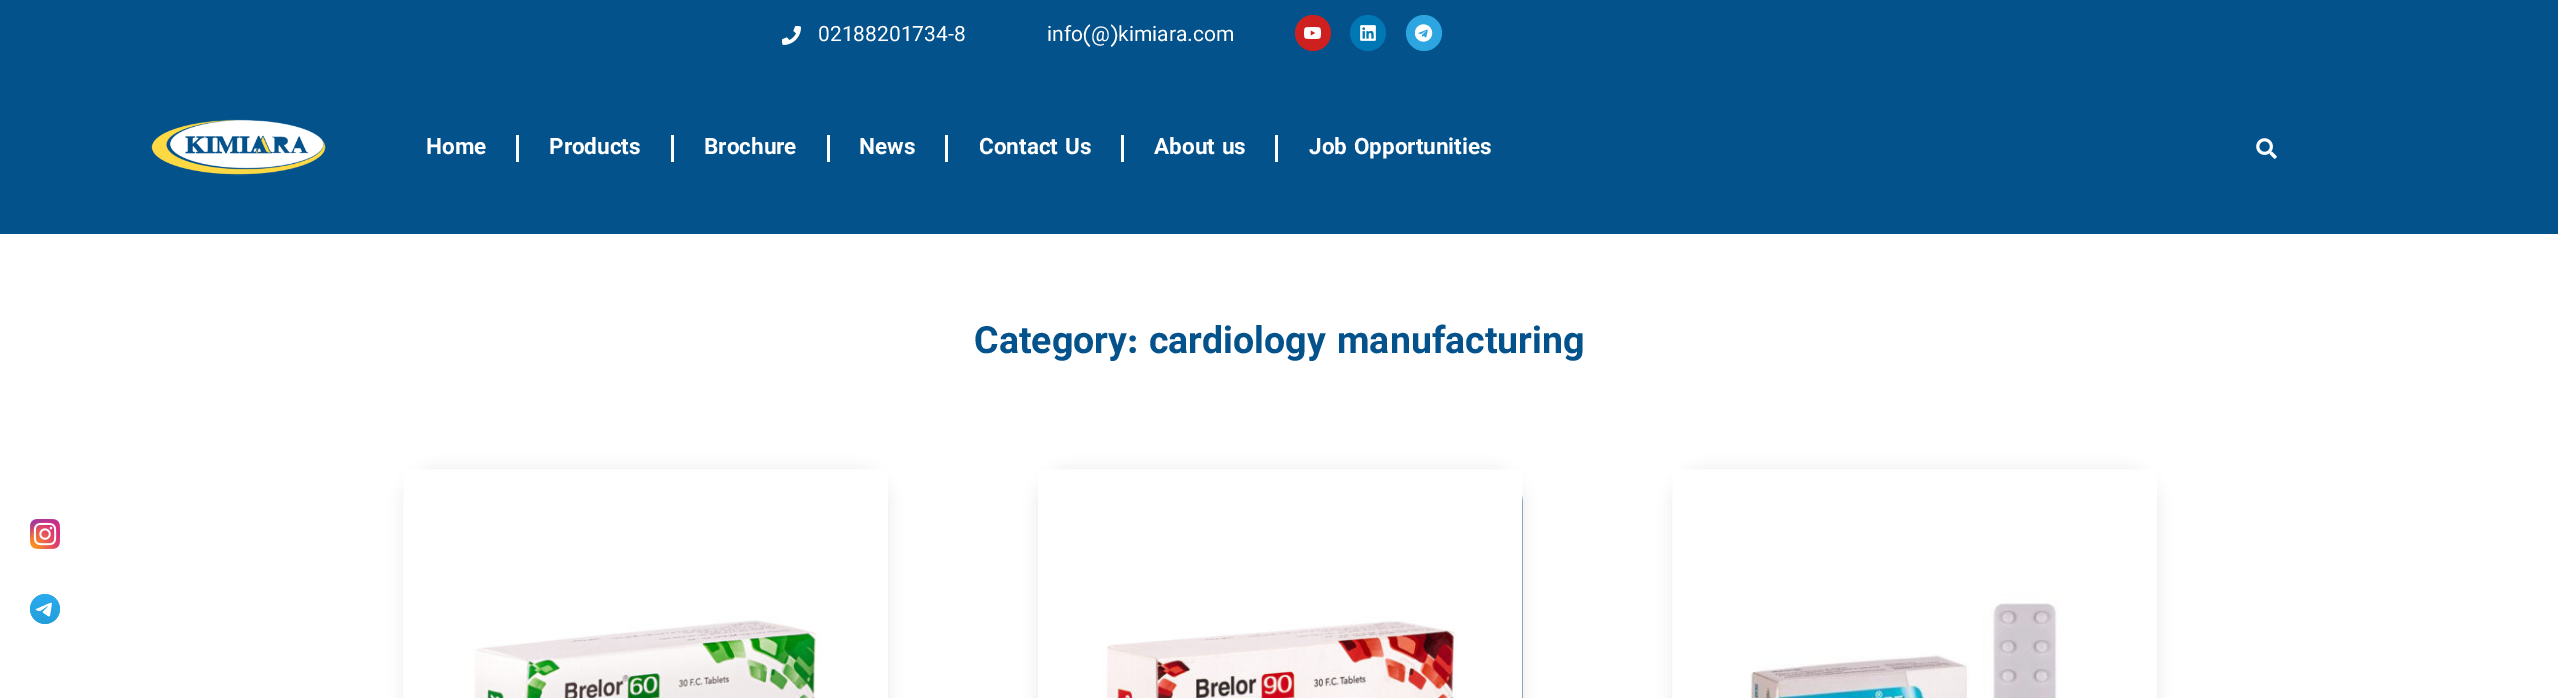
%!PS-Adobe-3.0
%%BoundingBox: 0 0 2558 698
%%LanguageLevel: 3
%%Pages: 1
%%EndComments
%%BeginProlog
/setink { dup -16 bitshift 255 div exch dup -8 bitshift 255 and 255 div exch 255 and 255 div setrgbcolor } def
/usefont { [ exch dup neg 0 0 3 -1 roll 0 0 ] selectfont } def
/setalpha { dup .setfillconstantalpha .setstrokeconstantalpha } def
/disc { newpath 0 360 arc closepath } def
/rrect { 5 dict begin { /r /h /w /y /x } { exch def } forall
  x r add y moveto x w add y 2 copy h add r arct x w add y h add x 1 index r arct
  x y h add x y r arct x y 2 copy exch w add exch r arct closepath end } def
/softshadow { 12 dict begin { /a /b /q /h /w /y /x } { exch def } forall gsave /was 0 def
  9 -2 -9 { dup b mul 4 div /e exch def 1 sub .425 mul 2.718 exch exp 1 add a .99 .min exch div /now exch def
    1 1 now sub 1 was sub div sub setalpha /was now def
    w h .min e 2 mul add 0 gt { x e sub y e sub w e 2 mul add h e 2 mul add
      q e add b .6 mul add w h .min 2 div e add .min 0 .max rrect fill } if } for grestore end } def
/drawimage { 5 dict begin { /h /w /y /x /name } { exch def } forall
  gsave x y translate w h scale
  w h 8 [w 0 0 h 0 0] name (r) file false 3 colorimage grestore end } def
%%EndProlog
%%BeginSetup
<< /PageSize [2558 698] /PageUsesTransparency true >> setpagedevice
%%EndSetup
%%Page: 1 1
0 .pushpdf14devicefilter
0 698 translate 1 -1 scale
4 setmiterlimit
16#FFFFFF setink
0 0 2558 698 rectfill
16#04528B setink
0 0 2558 234 rectfill
(img1.raw) 782 26 19 19 drawimage
/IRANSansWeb-Regular 21 usefont
16#FFFFFF setink
818 41 moveto (02188201734-8) show
1047 41 moveto (info\(@\)kimiara.com) show
16#CD201F setink
1313 33 18 disc fill
(img2.raw) 1304 27 17 12 drawimage
16#0077B5 setink
1368 33 18 disc fill
(img3.raw) 1360 25 16 16 drawimage
16#2CA5E0 setink
1424 33 18 disc fill
(img4.raw) 1415 24 18 18 drawimage
(img5.raw) 150 119 176 57 drawimage
/IRANSansWeb-Bold 22.5 usefont
16#FFFFFF setink
426 154 moveto (Home) show
516 135 3 27 rectfill
549 154 moveto (Products) show
671 135 3 27 rectfill
704 154 moveto (Brochure) show
827 135 3 27 rectfill
859 154 moveto (News) show
945 135 3 27 rectfill
979 154 moveto (Contact Us) show
1121 135 3 27 rectfill
1154 154 moveto (About us) show
1275 135 3 27 rectfill
1309 154 moveto (Job Opportunities) show
(img6.raw) 2256 138 21 21 drawimage
(img7.raw) 30 519 30 30 drawimage
(img8.raw) 30 594 30 30 drawimage
/IRANSansWeb-Bold 37.5 usefont
16#04528B setink
974 353 moveto (Category: cardiology manufacturing) show
16#D5D5D5 setink
404 470 484 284 33 7.5 0.5 softshadow
(img9.raw) 403 469 485 229 drawimage
1038 470 485 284 33 7.5 0.5 softshadow
16#04528B setink
1038 470 485 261 33 rrect fill
(img10.raw) 1038 469 485 229 drawimage
16#D5D5D5 setink
1673 470 484 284 33 7.5 0.5 softshadow
(img11.raw) 1672 469 485 229 drawimage
.poppdf14devicefilter showpage
%%EOF
